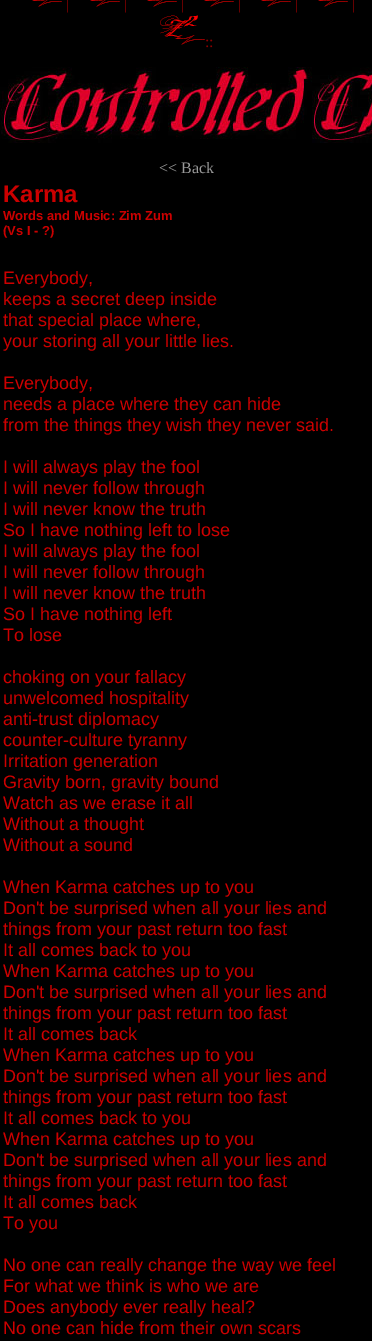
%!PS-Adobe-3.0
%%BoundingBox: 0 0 372 1341
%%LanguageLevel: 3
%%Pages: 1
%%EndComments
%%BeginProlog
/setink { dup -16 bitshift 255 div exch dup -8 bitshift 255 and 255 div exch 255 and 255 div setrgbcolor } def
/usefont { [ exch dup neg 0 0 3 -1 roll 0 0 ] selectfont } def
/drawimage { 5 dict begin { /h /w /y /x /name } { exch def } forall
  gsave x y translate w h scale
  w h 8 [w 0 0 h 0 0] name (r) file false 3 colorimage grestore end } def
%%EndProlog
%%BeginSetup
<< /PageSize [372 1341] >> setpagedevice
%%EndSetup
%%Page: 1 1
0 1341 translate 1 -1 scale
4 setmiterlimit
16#000000 setink
0 0 372 1341 rectfill
(img1.raw) 32 0 30 7 drawimage
/LiberationSerif-Regular 16 usefont
16#8B0000 setink
66 9 moveto (|) show
(img1.raw) 90 0 30 7 drawimage
124 9 moveto (|) show
(img1.raw) 147 0 30 7 drawimage
181 9 moveto (|) show
(img1.raw) 204 0 30 7 drawimage
238 9 moveto (|) show
(img1.raw) 261 0 30 7 drawimage
295 9 moveto (|) show
(img1.raw) 318 0 30 7 drawimage
352 9 moveto (|) show
(img2.raw) 160 15 45 30 drawimage
205 47 moveto (::) show
(img3.raw) 0 67 372 76 drawimage
16#999999 setink
159 173 moveto (<< Back) show
/LiberationSans-Bold 24 usefont
16#CC0000 setink
3 202 moveto (Karma) show
/LiberationSans-Bold 13 usefont
3 220 moveto (Words and Music: Zim Zum) show
3 235 moveto (\(Vs I - ?\)) show
/LiberationSans-Regular 18 usefont
[
    [(Everybody,) 3 284]
    [(keeps a secret deep inside) 3 305]
    [(that special place where,) 3 326]
    [(your storing all your little lies.) 3 347]
    [(Everybody,) 3 389]
    [(needs a place where they can hide) 3 410]
    [(from the things they wish they never said.) 3 431]
    [(I will always play the fool) 3 473]
    [(I will never follow through) 3 494]
    [(I will never know the truth) 3 515]
    [(So I have nothing left to lose) 3 536]
    [(I will always play the fool) 3 557]
    [(I will never follow through) 3 578]
    [(I will never know the truth) 3 599]
    [(So I have nothing left) 3 620]
    [(To lose) 3 641]
    [(choking on your fallacy) 3 683]
    [(unwelcomed hospitality) 3 704]
    [(anti-trust diplomacy) 3 725]
    [(counter-culture tyranny) 3 746]
    [(Irritation generation) 3 767]
    [(Gravity born, gravity bound) 3 788]
    [(Watch as we erase it all) 3 809]
    [(Without a thought) 3 830]
    [(Without a sound) 3 851]
    [(When Karma catches up to you) 3 893]
    [(Don't be surprised when all your lies and) 3 914]
    [(things from your past return too fast) 3 935]
    [(It all comes back to you) 3 956]
    [(When Karma catches up to you) 3 977]
    [(Don't be surprised when all your lies and) 3 998]
    [(things from your past return too fast) 3 1019]
    [(It all comes back) 3 1040]
    [(When Karma catches up to you) 3 1061]
    [(Don't be surprised when all your lies and) 3 1082]
    [(things from your past return too fast) 3 1103]
    [(It all comes back to you) 3 1124]
    [(When Karma catches up to you) 3 1145]
    [(Don't be surprised when all your lies and) 3 1166]
    [(things from your past return too fast) 3 1187]
    [(It all comes back) 3 1208]
    [(To you) 3 1229]
    [(No one can really change the way we feel) 3 1271]
    [(For what we think is who we are) 3 1292]
    [(Does anybody ever really heal?) 3 1313]
    [(No one can hide from their own scars) 3 1334]
] { aload pop moveto show } forall
showpage
%%EOF
